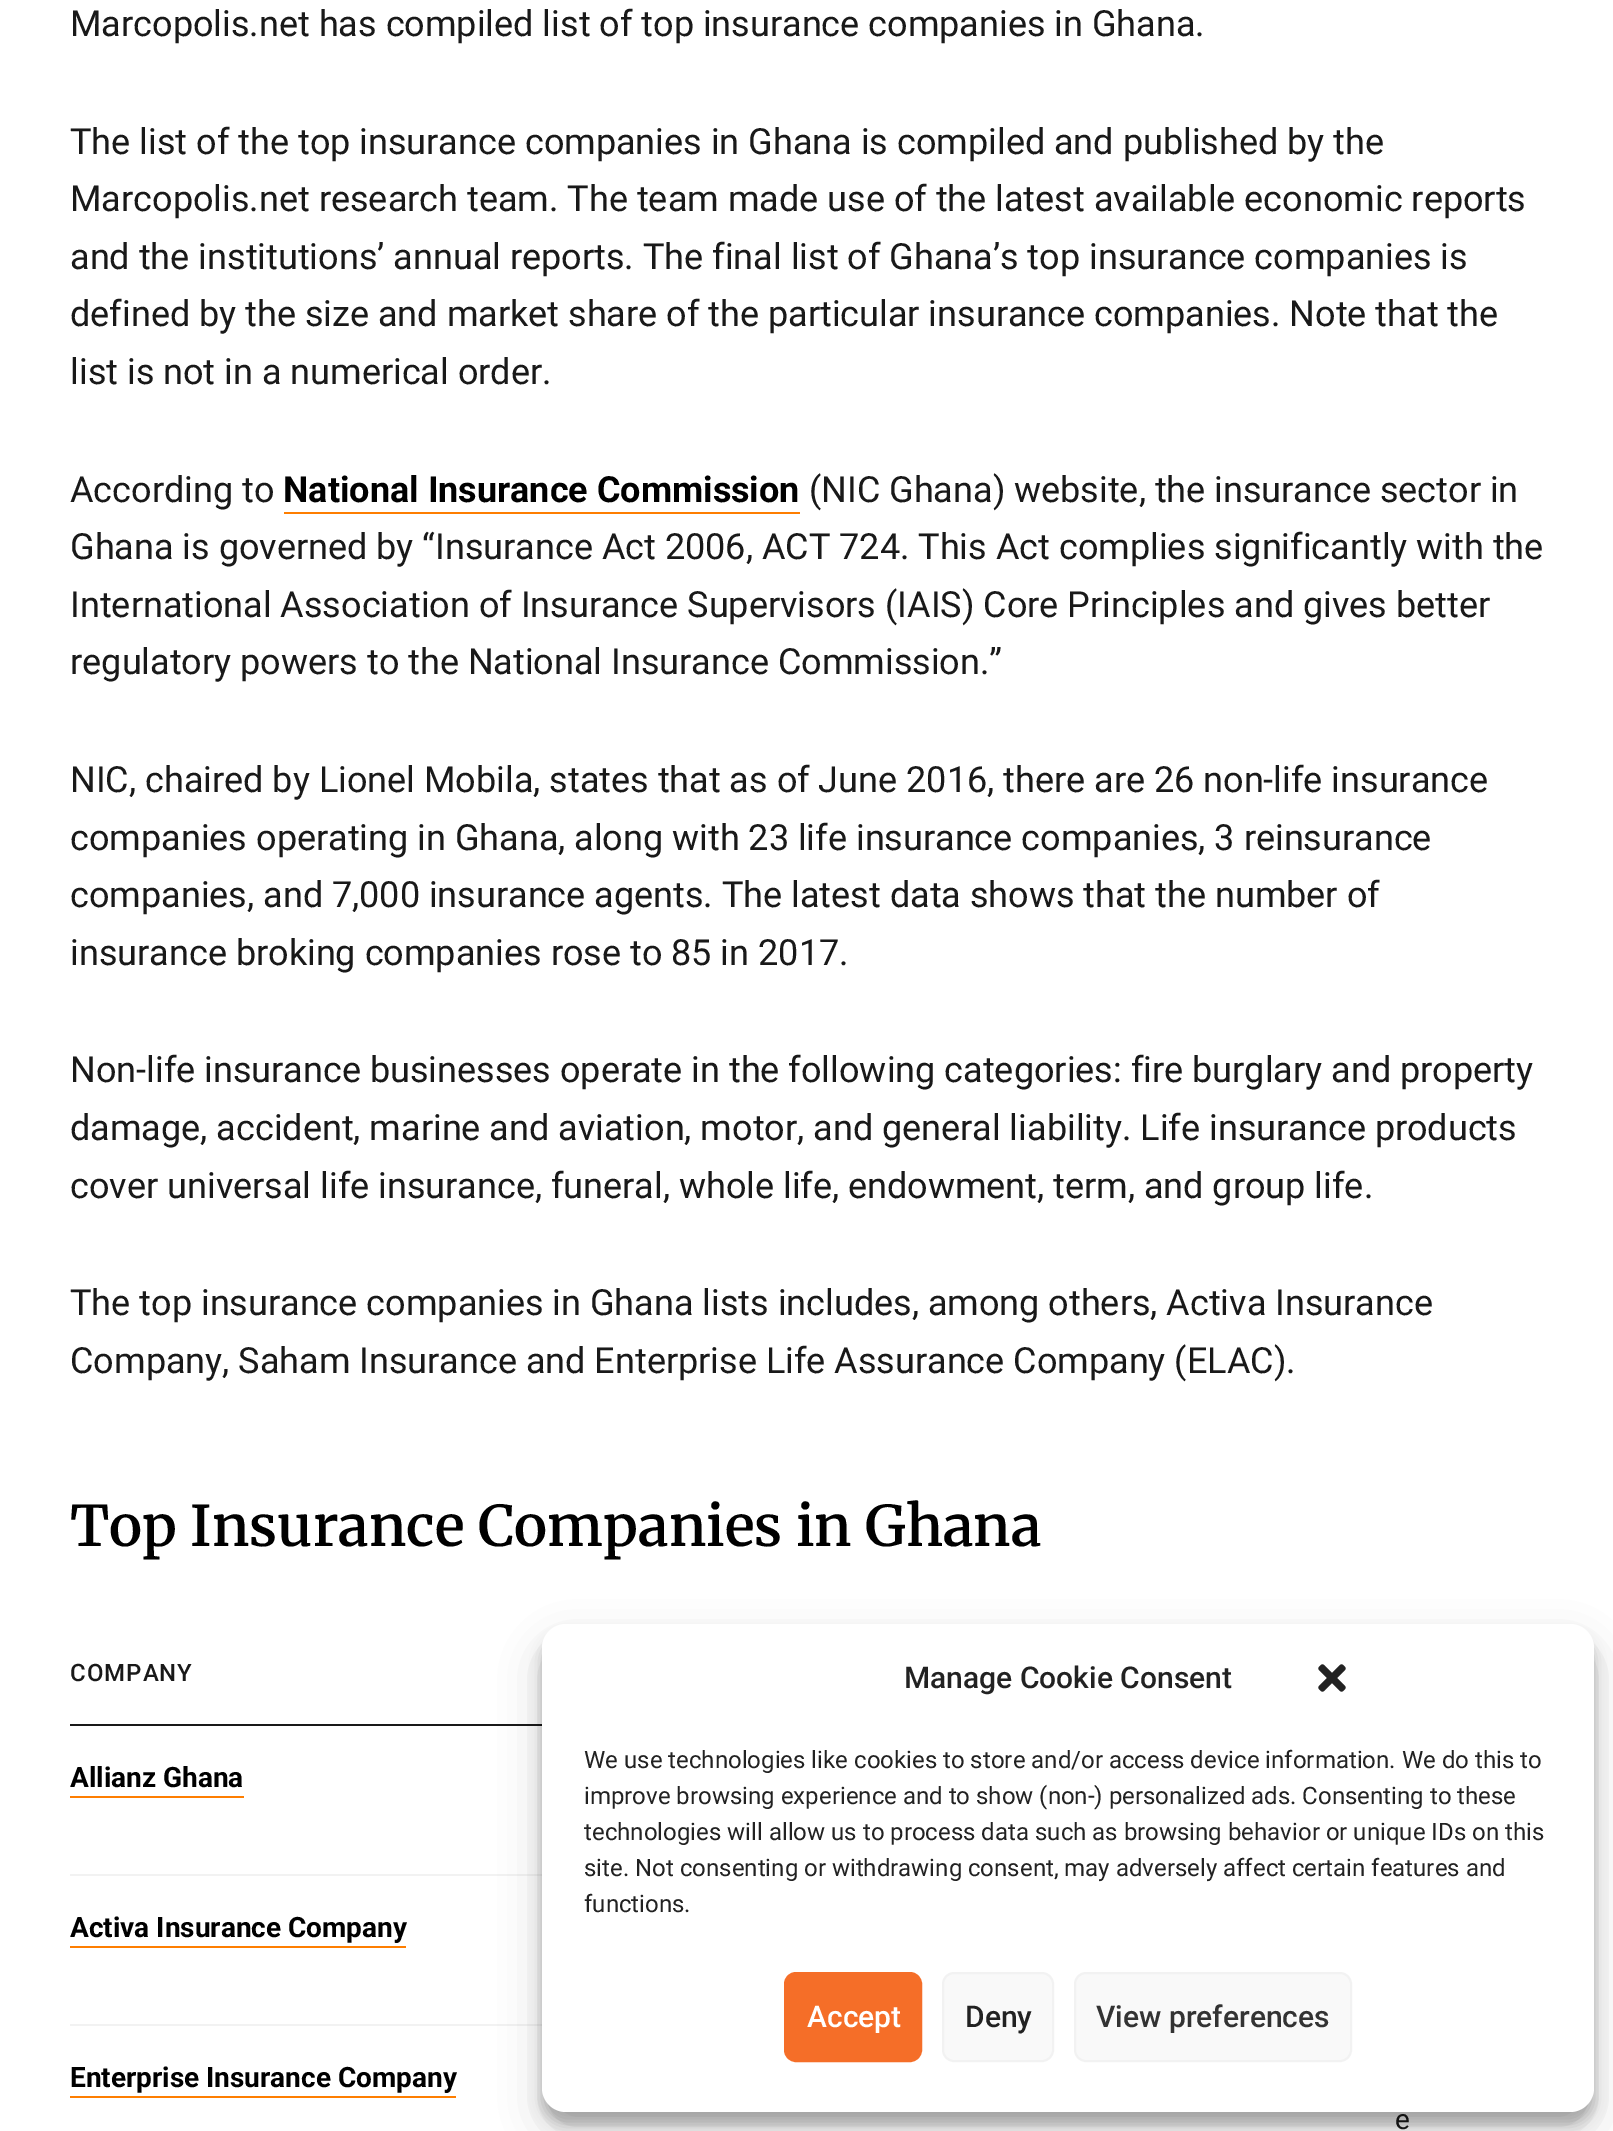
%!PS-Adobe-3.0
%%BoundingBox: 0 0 1613 2131
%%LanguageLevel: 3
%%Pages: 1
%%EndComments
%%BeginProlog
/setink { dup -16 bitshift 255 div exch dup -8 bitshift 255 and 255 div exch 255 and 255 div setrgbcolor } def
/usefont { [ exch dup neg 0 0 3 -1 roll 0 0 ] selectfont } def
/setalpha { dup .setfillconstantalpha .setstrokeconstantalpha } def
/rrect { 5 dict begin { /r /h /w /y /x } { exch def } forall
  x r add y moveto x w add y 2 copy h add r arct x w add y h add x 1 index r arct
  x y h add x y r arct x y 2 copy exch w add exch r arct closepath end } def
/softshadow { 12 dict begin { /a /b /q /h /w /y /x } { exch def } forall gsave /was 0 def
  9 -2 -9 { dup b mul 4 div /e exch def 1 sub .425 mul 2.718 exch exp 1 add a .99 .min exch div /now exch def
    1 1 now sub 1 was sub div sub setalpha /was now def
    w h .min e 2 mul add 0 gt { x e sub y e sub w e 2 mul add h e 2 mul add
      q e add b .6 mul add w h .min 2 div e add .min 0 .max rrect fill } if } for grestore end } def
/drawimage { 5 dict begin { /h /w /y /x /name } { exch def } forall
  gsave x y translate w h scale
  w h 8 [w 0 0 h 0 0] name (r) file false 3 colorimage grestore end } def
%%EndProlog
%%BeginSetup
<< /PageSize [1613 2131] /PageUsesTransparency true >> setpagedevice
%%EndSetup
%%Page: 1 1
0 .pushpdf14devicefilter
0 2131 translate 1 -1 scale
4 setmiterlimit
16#FFFFFF setink
0 0 1613 2131 rectfill
/Roboto-Regular 36 usefont
16#191919 setink
[
    [(Marcopolis.net has compiled list of top insurance companies in Ghana.) 70 36]
    [(The list of the top insurance companies in Ghana is compiled and published by the) 70 154]
    [(Marcopolis.net research team. The team made use of the latest available economic reports) 70 211]
    [(and the institutions’ annual reports. The final list of Ghana’s top insurance companies is) 70 269]
    [(defined by the size and market share of the particular insurance companies. Note that the) 70 326]
    [(list is not in a numerical order.) 70 384]
    [(According to) 70 502]
] { aload pop moveto show } forall
/Roboto-Bold 36 usefont
16#000000 setink
283 502 moveto (National Insurance Commission) show
16#FE7E00 setink
284 512 516 2 rectfill
/Roboto-Regular 36 usefont
16#191919 setink
[
    [(\(NIC Ghana\) website, the insurance sector in) 809 502]
    [(Ghana is governed by “Insurance Act 2006, ACT 724. This Act complies significantly with the) 70 559]
    [(International Association of Insurance Supervisors \(IAIS\) Core Principles and gives better) 70 617]
    [(regulatory powers to the National Insurance Commission.”) 70 674]
    [(NIC, chaired by Lionel Mobila, states that as of June 2016, there are 26 non-life insurance) 70 792]
    [(companies operating in Ghana, along with 23 life insurance companies, 3 reinsurance) 70 850]
    [(companies, and 7,000 insurance agents. The latest data shows that the number of) 70 907]
    [(insurance broking companies rose to 85 in 2017.) 70 965]
    [(Non-life insurance businesses operate in the following categories: fire burglary and property) 70 1082]
    [(damage, accident, marine and aviation, motor, and general liability. Life insurance products) 70 1140]
    [(cover universal life insurance, funeral, whole life, endowment, term, and group life.) 70 1198]
    [(The top insurance companies in Ghana lists includes, among others, Activa Insurance) 70 1315]
    [(Company, Saham Insurance and Enterprise Life Assurance Company \(ELAC\).) 70 1373]
] { aload pop moveto show } forall
/Merriweather-SemiBold 56 usefont
16#000000 setink
70 1546 moveto (Top Insurance Companies in Ghana) show
16#191919 setink
70 1724 472 2 rectfill
/Roboto-Medium 24 usefont
70 1681 moveto 1 0 (COMPANY) ashow
16#F2F2F2 setink
70 1874 472 2 rectfill
/Roboto-Bold 28 usefont
16#000000 setink
70 1787 moveto (Allianz Ghana) show
16#FE7E00 setink
70 1796 174 2 rectfill
16#F2F2F2 setink
70 2024 472 2 rectfill
16#000000 setink
70 1937 moveto (Activa Insurance Company) show
16#FE7E00 setink
70 1946 336 2 rectfill
16#000000 setink
70 2087 moveto (Enterprise Insurance Company) show
16#FE7E00 setink
70 2096 386 2 rectfill
/Roboto-Regular 28 usefont
16#191919 setink
1395 2129 moveto (e) show
16#000000 setink
542 1636 1052 488 24 6 0.23 softshadow
542 1644 1052 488 24 20 0.19 softshadow
16#FFFFFF setink
542 1624 1052 488 24 rrect fill
/Roboto-Medium 30 usefont
16#222222 setink
904 1688 moveto (Manage Cookie Consent) show
(img1.raw) 1318 1664 28 28 drawimage
/Roboto-Regular 24 usefont
[
    [(We use technologies like cookies to store and/or access device information. We do this to) 584 1768]
    [(improve browsing experience and to show \(non-\) personalized ads. Consenting to these) 584 1804]
    [(technologies will allow us to process data such as browsing behavior or unique IDs on this) 584 1840]
    [(site. Not consenting or withdrawing consent, may adversely affect certain features and) 584 1876]
    [(functions.) 584 1912]
] { aload pop moveto show } forall
16#F56E28 setink
785 1973 136 88 11 rrect gsave fill grestore
2 setlinewidth
stroke
/Roboto-Medium 30 usefont
16#FFFFFF setink
807 2027 moveto (Accept) show
16#F9F9F9 setink
943 1973 110 88 11 rrect gsave fill grestore
16#F2F2F2 setink
stroke
16#222222 setink
965 2027 moveto (Deny) show
16#F9F9F9 setink
1075 1973 276 88 11 rrect gsave fill grestore
16#F2F2F2 setink
stroke
16#333333 setink
1096 2027 moveto (View preferences) show
.poppdf14devicefilter showpage
%%EOF
